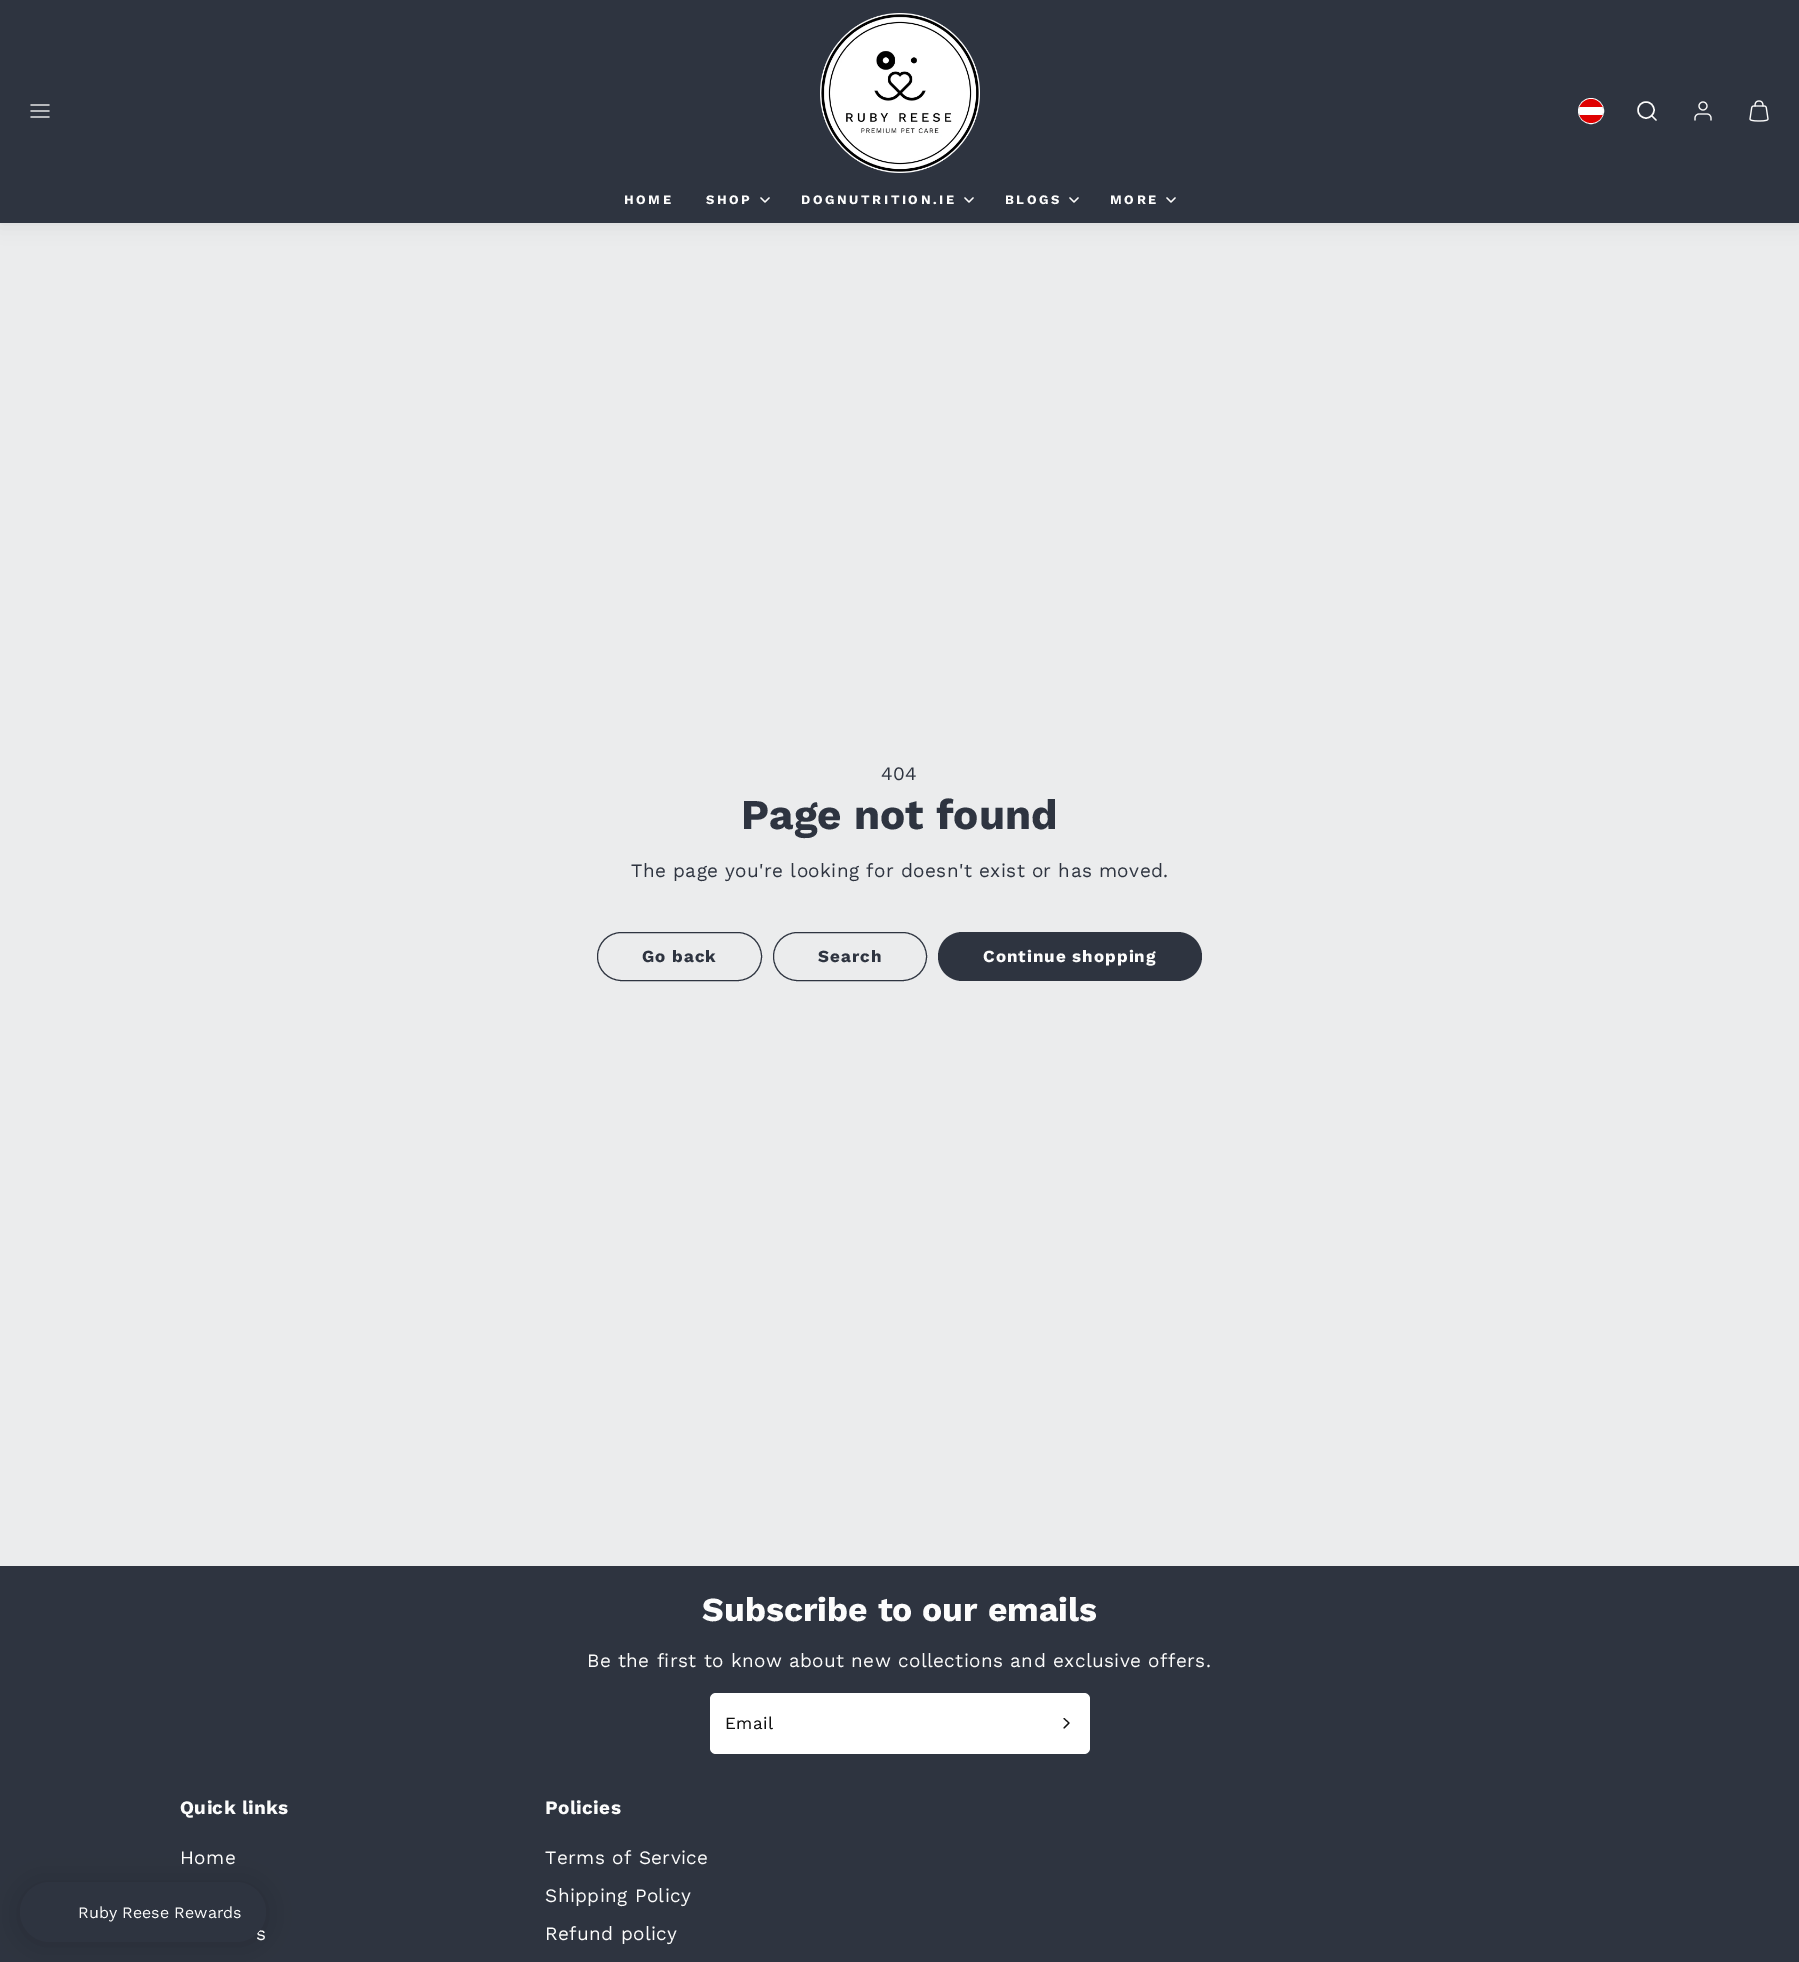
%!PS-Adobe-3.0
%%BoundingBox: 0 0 1799 1962
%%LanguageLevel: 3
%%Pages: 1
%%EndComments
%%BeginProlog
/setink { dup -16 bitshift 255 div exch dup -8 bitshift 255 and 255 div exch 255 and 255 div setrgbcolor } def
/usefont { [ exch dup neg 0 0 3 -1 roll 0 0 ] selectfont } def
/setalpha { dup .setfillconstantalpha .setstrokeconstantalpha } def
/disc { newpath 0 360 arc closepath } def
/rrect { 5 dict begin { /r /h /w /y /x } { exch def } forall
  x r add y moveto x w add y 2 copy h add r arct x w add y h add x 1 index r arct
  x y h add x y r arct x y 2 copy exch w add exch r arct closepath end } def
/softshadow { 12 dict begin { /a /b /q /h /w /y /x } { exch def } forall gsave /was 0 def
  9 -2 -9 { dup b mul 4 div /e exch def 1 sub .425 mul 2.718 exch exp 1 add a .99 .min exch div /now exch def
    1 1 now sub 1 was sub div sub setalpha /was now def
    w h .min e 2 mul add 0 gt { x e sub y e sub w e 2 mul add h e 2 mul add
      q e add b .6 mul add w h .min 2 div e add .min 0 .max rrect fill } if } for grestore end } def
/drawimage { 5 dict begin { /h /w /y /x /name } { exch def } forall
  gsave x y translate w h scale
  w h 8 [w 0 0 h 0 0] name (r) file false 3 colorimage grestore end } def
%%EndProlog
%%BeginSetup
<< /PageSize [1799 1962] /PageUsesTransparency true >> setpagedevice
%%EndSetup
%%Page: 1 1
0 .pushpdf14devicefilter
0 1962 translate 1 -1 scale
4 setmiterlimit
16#EBECED setink
0 0 1799 1962 rectfill
16#000000 setink
0 0 1799 223 0 10 0.1 softshadow
16#2E3440 setink
0 0 1799 223 rectfill
(img1.raw) 30 104 20 14 drawimage
16#FCFCFC setink
1591 111 12.5 disc stroke
16#FFFFFF setink
1591 111 12 disc fill
16#DF0000 setink
1591 99 moveto 1596 99 1600.5 102.5 1602.5 107 curveto 1579.5 107 lineto 1581.5 102.5 1586 99 1591 99 curveto closepath 1602.5 115 moveto 1598.5 125.5 1583.5 125.5 1579.5 115 curveto closepath eofill
16#FCFCFC setink
1.4 setlinewidth
1646 110 8 disc stroke
1 setlinecap
1 setlinejoin
1656 120 moveto 1651.5 115.5 lineto stroke
(img2.raw) 1694 101 18 20 drawimage
(img3.raw) 1749 100 20 22 drawimage
(img4.raw) 820 13 160 160 drawimage
/WorkSans-Bold 13 usefont
624 204 moveto 2.6 0 (HOME) ashow
706 204 moveto 2.6 0 (SHOP) ashow
761 198 moveto 765 202 lineto 769 198 lineto stroke
801 204 moveto 2.6 0 (DOGNUTRITION.IE) ashow
965 198 moveto 969 202 lineto 973 198 lineto stroke
1005 204 moveto 2.6 0 (BLOGS) ashow
1070 198 moveto 1074 202 lineto 1078 198 lineto stroke
1110 204 moveto 2.6 0 (MORE) ashow
1167 198 moveto 1171 202 lineto 1175 198 lineto stroke
/WorkSans-Regular 19 usefont
16#2E3440 setink
881 780 moveto 0.38 0 (404) ashow
/WorkSans-Bold 42.25 usefont
741 829 moveto (Page not found) show
/WorkSans-Regular 19 usefont
631 877 moveto 0.38 0 (The page you're looking for doesn't exist or has moved.) ashow
1 setlinewidth
0 setlinecap
0 setlinejoin
597.5 932.5 164 48 24 rrect stroke
/WorkSans-Bold 17 usefont
642 962 moveto 1 0 (Go back) ashow
773.5 932.5 153 48 24 rrect stroke
818 962 moveto 1 0 (Search) ashow
938 932 264 49 24.5 rrect fill
16#FCFCFC setink
983 962 moveto 1 0 (Continue shopping) ashow
16#2E3440 setink
0 1566 1799 396 rectfill
/WorkSans-Bold 33.75 usefont
16#FCFCFC setink
702 1621 moveto (Subscribe to our emails) show
/WorkSans-Regular 19 usefont
587 1667 moveto 0.38 0 (Be the first to know about new collections and exclusive offers.) ashow
16#FFFFFF setink
710 1693 380 61 6 rrect fill
/WorkSans-Regular 17 usefont
16#111111 setink
725 1729 moveto 0.38 0 (Email) ashow
1.1 setlinewidth
1 setlinecap
1 setlinejoin
1064 1728 moveto 1069 1723 lineto 1064 1718.5 lineto stroke
16#000000 setink
20 1884 246 60 30 15 0.15 softshadow
/WorkSans-Regular 19 usefont
16#FCFCFC setink
256 1940 moveto 0.38 0 (s) ashow
16#2E3440 setink
20 1882 246 60 30 rrect fill
/WorkSans-Regular 16 usefont
16#FCFCFC setink
78 1918 moveto (Ruby Reese Rewards) show
/WorkSans-Bold 19 usefont
180 1814 moveto 0.38 0 (Quick links) ashow
/WorkSans-Regular 19 usefont
180 1864 moveto 0.38 0 (Home) ashow
/WorkSans-Bold 19 usefont
545 1814 moveto 0.38 0 (Policies) ashow
/WorkSans-Regular 19 usefont
545 1864 moveto 0.38 0 (Terms of Service) ashow
545 1902 moveto 0.38 0 (Shipping Policy) ashow
545 1940 moveto 0.38 0 (Refund policy) ashow
.poppdf14devicefilter showpage
%%EOF
